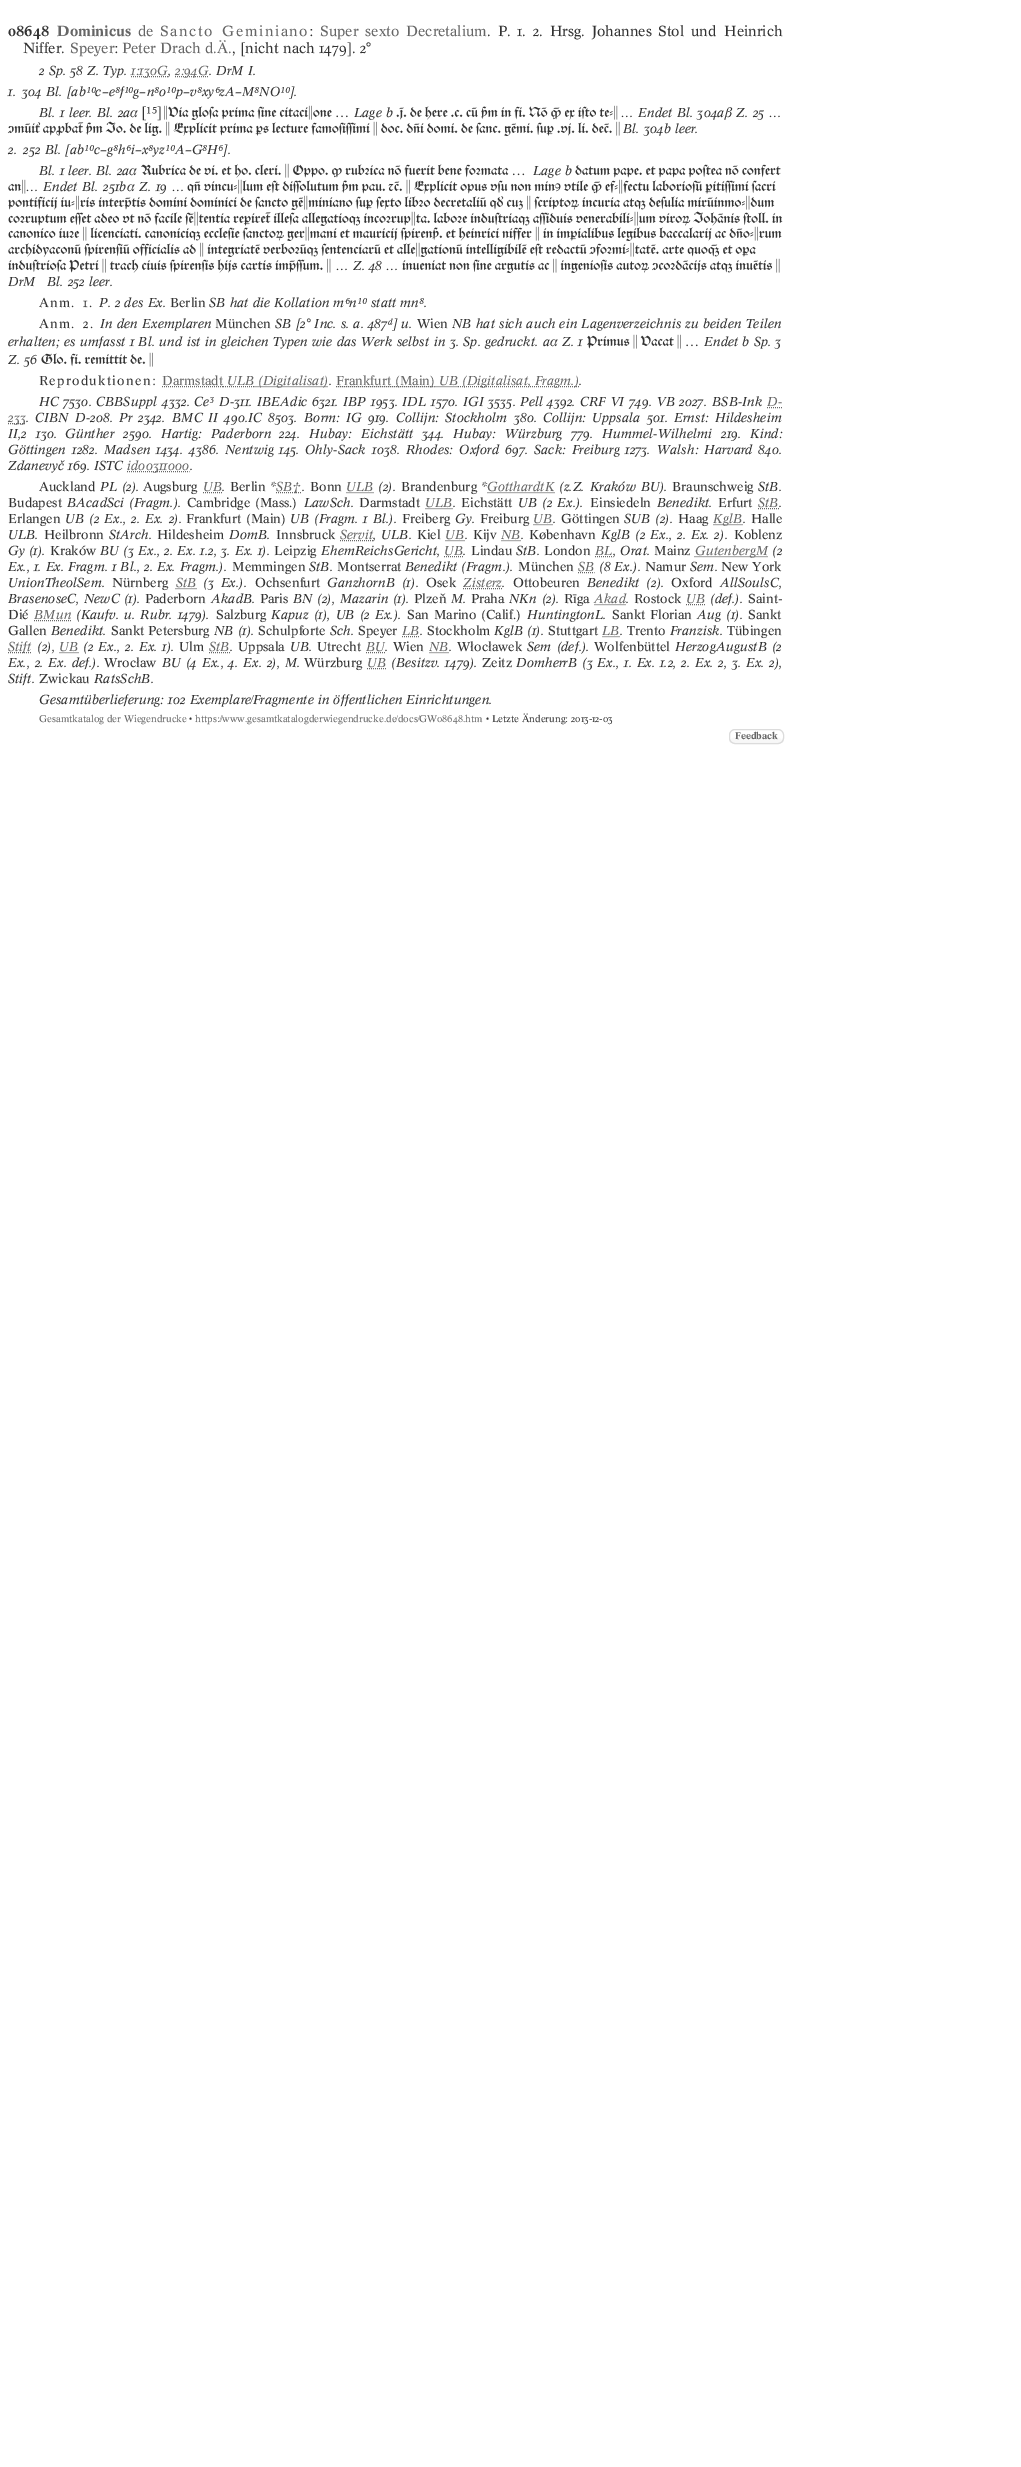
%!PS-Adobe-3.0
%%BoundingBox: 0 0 1021 2467
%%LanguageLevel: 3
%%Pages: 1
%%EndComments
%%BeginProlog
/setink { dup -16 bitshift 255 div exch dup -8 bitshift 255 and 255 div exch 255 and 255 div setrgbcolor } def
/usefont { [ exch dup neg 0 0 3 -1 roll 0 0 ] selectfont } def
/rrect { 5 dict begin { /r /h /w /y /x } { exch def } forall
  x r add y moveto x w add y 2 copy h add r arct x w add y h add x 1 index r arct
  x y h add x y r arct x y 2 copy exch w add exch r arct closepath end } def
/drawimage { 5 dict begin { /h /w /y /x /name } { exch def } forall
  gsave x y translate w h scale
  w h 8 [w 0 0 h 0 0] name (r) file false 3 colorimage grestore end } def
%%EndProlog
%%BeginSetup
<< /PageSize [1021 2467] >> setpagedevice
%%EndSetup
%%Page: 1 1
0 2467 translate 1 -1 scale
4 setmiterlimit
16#FFFFFF setink
0 0 1021 2467 rectfill
/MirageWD-Bold 14.4 usefont
16#333333 setink
8 36 moveto (08648) show
16#666666 setink
57 36 moveto (Dominicus) show
/MirageWD-Regular 14.4 usefont
138 36 moveto (de) show
160 36 moveto 2.75 0 32 1.5 0 (Sancto Geminiano) awidthshow
16#333333 setink
309 36 moveto (:) show
16#666666 setink
320 36 moveto 2.75 0 32 (Super sexto Decretalium) widthshow
16#333333 setink
487 36 moveto 2.75 0 32 (. P. 1. 2. Hrsg. Johannes) widthshow
658 36 moveto 2.75 0 32 (Stol und) widthshow
724 36 moveto (Heinrich) show
23 53 moveto (Niffer.) show
16#666666 setink
70 53 moveto (Speyer) show
16#333333 setink
114 53 moveto (:) show
16#666666 setink
122 53 moveto (Peter Drach d.Ä.) show
16#333333 setink
232 53 moveto (, [nicht nach 1479]. 2°) show
/MirageWD-Italic 12.8 usefont
39 75 moveto (2 Sp. 58 Z. Typ.) show
16#666666 setink
[1 1] 0 setdash
131 76.5 moveto 168 76.5 lineto stroke
131 75 moveto (1:130G) show
16#333333 setink
168 75 moveto (,) show
16#666666 setink
175 76.5 moveto 209 76.5 lineto stroke
175 75 moveto (2:94G) show
16#333333 setink
209 75 moveto (. DrM I.) show
8 96 moveto (1. 304 Bl. [ab¹⁰c–e⁸f¹⁰g–n⁸o¹⁰p–v⁸xy⁶zA–M⁸NO¹⁰].) show
39 117 moveto 0.25 0 32 (Bl. 1 leer. Bl. 2aα) widthshow
/MirageWD-Regular 14.4 usefont
141 117 moveto ([¹⁵]) show
(img1.raw) 164 105 184 15 drawimage
/MirageWD-Italic 12.8 usefont
354 117 moveto (Lage b) show
(img2.raw) 396 105 222 15 drawimage
621 117 moveto 0.25 0 32 (… Endet Bl. 304aβ Z. 25 …) widthshow
(img3.raw) 7 121 613 15 drawimage
[
    [(Bl. 304b leer.) 623 133]
    [(2. 252 Bl. [ab¹⁰c–g⁸h⁶i–x⁸yz¹⁰A–G⁸H⁶].) 8 154]
    [(Bl. 1 leer. Bl. 2aα) 39 175]
] { aload pop moveto show } forall
(img4.raw) 141 163 384 15 drawimage
533 175 moveto (Lage b) show
(img5.raw) 575 164 206 14 drawimage
(img6.raw) 8 179 18 15 drawimage
26 191 moveto 0.5 0 32 (… Endet Bl. 251bα Z. 19 …) widthshow
(img7.raw) 187 179 589 15 drawimage
(img8.raw) 8 195 767 15 drawimage
(img9.raw) 8 211 775 15 drawimage
(img10.raw) 8 226 774 15 drawimage
(img11.raw) 8 242 748 15 drawimage
(img12.raw) 8 258 323 15 drawimage
336 270 moveto (… Z. 48 …) show
(img13.raw) 402 258 378 15 drawimage
8 286 moveto (DrM) show
47 286 moveto (Bl. 252 leer.) show
/MirageWD-Regular 12.8 usefont
39 307 moveto 1.25 0 (Anm. 1.) ashow
/MirageWD-Italic 12.8 usefont
99 307 moveto (P. 2 des Ex.) show
/MirageWD-Regular 12.8 usefont
170 307 moveto (Berlin) show
/MirageWD-Italic 12.8 usefont
209 307 moveto (SB hat die Kollation m⁶n¹⁰ statt mn⁸.) show
/MirageWD-Regular 12.8 usefont
39 328 moveto 1.25 0 (Anm. 2.) ashow
/MirageWD-Italic 12.8 usefont
100 328 moveto (In den Exemplaren) show
/MirageWD-Regular 12.8 usefont
215 328 moveto (München) show
/MirageWD-Italic 12.8 usefont
275 328 moveto (SB [2° Inc. s. a. 487ᵈ] u.) show
/MirageWD-Regular 12.8 usefont
417 328 moveto (Wien) show
/MirageWD-Italic 12.8 usefont
452 328 moveto (NB hat sich auch ein Lagenverzeichnis zu beiden Teilen) show
8 346 moveto 0.25 0 32 (erhalten; es umfasst 1 Bl. und ist in gleichen Typen wie das Werk selbst in 3. Sp. gedruckt. aα Z. 1) widthshow
(img14.raw) 587 334 111 15 drawimage
704 346 moveto (Endet b Sp. 3) show
8 364 moveto (Z. 56) show
(img15.raw) 41 352 112 15 drawimage
/MirageWD-Regular 12.8 usefont
39 385 moveto 1.25 0 (Reproduktionen:) ashow
16#666666 setink
162 385 moveto (Darmstadt) show
162 386.5 moveto 223 386.5 lineto stroke
[] 0 setdash
223 386.5 moveto 224 386.5 lineto 225 386.5 moveto 226 386.5 lineto stroke
/MirageWD-Italic 12.8 usefont
227 385 moveto (ULB) show
[1 1] 0 setdash
227 386.5 moveto 254.5 386.5 lineto stroke
254.5 386.5 moveto 328.5 386.5 lineto stroke
258 385 moveto (\(Digitalisat\)) show
16#333333 setink
329 385 moveto (.) show
16#666666 setink
336 386.5 moveto 434.5 386.5 lineto stroke
/MirageWD-Regular 12.8 usefont
336 385 moveto (Frankfurt \(Main\)) show
[] 0 setdash
434.5 386.5 moveto 435.5 386.5 lineto 436.5 386.5 moveto 437.5 386.5 lineto stroke
/MirageWD-Italic 12.8 usefont
439 385 moveto (UB) show
[1 1] 0 setdash
438.5 386.5 moveto 458 386.5 lineto stroke
458 386.5 moveto 579 386.5 lineto stroke
462 385 moveto (\(Digitalisat, Fragm.\)) show
16#333333 setink
[
    [(.) 579 385]
    [(HC) 39 406]
    [(7530.) 63 406]
    [(CBBSuppl) 96 406]
    [(4332.) 162 406]
    [(Ce³) 194 406]
    [(D-311.) 219 406]
    [(IBEAdic) 257 406]
    [(6321.) 312 406]
    [(IBP) 343 406]
    [(1953.) 371 406]
    [(IDL) 402 406]
    [(1570.) 431 406]
    [(IGI) 463 406]
    [(3535.) 488 406]
    [(Pell) 520 406]
    [(4392.) 547 406]
] { aload pop moveto show } forall
580 406 moveto 1 0 32 (CRF VI) widthshow
[
    [(749.) 629 406]
    [(VB) 657 406]
    [(2027.) 679 406]
    [(BSB-Ink) 712 406]
] { aload pop moveto show } forall
16#666666 setink
767 406 moveto (D-) show
767 407.5 moveto 782 407.5 lineto stroke
8 423.5 moveto 26 423.5 lineto stroke
8 422 moveto (233) show
16#333333 setink
[
    [(.) 26 422]
    [(CIBN) 35 422]
    [(D-208.) 75 422]
    [(Pr) 119 422]
    [(2342.) 138 422]
] { aload pop moveto show } forall
172 422 moveto 2 0 32 (BMC II) widthshow
224 422 moveto 2 0 32 (490.IC 8503.) widthshow
304 422 moveto 2 0 32 (Borm: IG) widthshow
368 422 moveto (919.) show
396 422 moveto 2 0 32 (Collijn: Stockholm) widthshow
514 422 moveto (380.) show
543 422 moveto 2 0 32 (Collijn: Uppsala) widthshow
647 422 moveto (501.) show
674 422 moveto 2 0 32 (Ernst: Hildesheim) widthshow
[
    [(II,2) 8 438]
    [(130.) 36 438]
    [(Günther) 65 438]
    [(2590.) 123 438]
] { aload pop moveto show } forall
161 438 moveto 5 0 32 (Hartig: Paderborn) widthshow
279 438 moveto (224.) show
309 438 moveto 5 0 32 (Hubay: Eichstätt) widthshow
422 438 moveto (344.) show
453 438 moveto 5 0 32 (Hubay: Würzburg) widthshow
[
    [(779.) 571 438]
    [(Hummel-Wilhelmi) 602 438]
    [(219.) 721 438]
    [(Kind:) 750 438]
    [(Göttingen) 8 454]
    [(1282.) 72 454]
    [(Madsen) 104 454]
] { aload pop moveto show } forall
156 454 moveto 2 0 32 (1434. 4386.) widthshow
[
    [(Nentwig) 225 454]
    [(145.) 279 454]
    [(Ohly-Sack) 305 454]
    [(1038.) 372 454]
] { aload pop moveto show } forall
406 454 moveto 2 0 32 (Rhodes: Oxford) widthshow
505 454 moveto (697.) show
534 454 moveto 2 0 32 (Sack: Freiburg) widthshow
625 454 moveto (1273.) show
657 454 moveto 2 0 32 (Walsh: Harvard) widthshow
758 454 moveto (840.) show
8 470 moveto (Zdanevyč 169. ISTC) show
16#666666 setink
127 471.5 moveto 189.5 471.5 lineto stroke
127 470 moveto (id00311000) show
16#333333 setink
190 470 moveto (.) show
/MirageWD-Regular 12.8 usefont
39 491 moveto (Auckland) show
/MirageWD-Italic 12.8 usefont
100 491 moveto 1 0 32 (PL \(2\).) widthshow
/MirageWD-Regular 12.8 usefont
143 491 moveto (Augsburg) show
/MirageWD-Italic 12.8 usefont
16#666666 setink
203 491 moveto (UB) show
203 492.5 moveto 222 492.5 lineto stroke
16#333333 setink
222 491 moveto (.) show
/MirageWD-Regular 12.8 usefont
230 491 moveto (Berlin) show
/MirageWD-Italic 12.8 usefont
270 491 moveto (*) show
16#666666 setink
276 492.5 moveto 302 492.5 lineto stroke
276 491 moveto (SB†) show
16#333333 setink
302 491 moveto (.) show
/MirageWD-Regular 12.8 usefont
310 491 moveto (Bonn) show
/MirageWD-Italic 12.8 usefont
16#666666 setink
346 491 moveto (ULB) show
346.5 492.5 moveto 374 492.5 lineto stroke
16#333333 setink
378 491 moveto (\(2\).) show
/MirageWD-Regular 12.8 usefont
401 491 moveto (Brandenburg) show
/MirageWD-Italic 12.8 usefont
481 491 moveto (*) show
16#666666 setink
487 491 moveto (GotthardtK) show
487.5 492.5 moveto 554.5 492.5 lineto stroke
16#333333 setink
559 491 moveto 1 0 32 (\(z.Z. Kraków BU\).) widthshow
/MirageWD-Regular 12.8 usefont
672 491 moveto (Braunschweig) show
/MirageWD-Italic 12.8 usefont
758 491 moveto (StB.) show
/MirageWD-Regular 12.8 usefont
8 507 moveto (Budapest) show
/MirageWD-Italic 12.8 usefont
67 507 moveto 1 0 32 (BAcadSci \(Fragm.\).) widthshow
/MirageWD-Regular 12.8 usefont
187 507 moveto 1 0 32 (Cambridge \(Mass.\)) widthshow
/MirageWD-Italic 12.8 usefont
304 507 moveto (LawSch.) show
/MirageWD-Regular 12.8 usefont
359 507 moveto (Darmstadt) show
/MirageWD-Italic 12.8 usefont
16#666666 setink
425 507 moveto (ULB) show
425.5 508.5 moveto 452.5 508.5 lineto stroke
16#333333 setink
453 507 moveto (.) show
/MirageWD-Regular 12.8 usefont
461 507 moveto (Eichstätt) show
/MirageWD-Italic 12.8 usefont
518 507 moveto 1 0 32 (UB \(2 Ex.\).) widthshow
/MirageWD-Regular 12.8 usefont
590 507 moveto (Einsiedeln) show
/MirageWD-Italic 12.8 usefont
657 507 moveto (Benedikt.) show
/MirageWD-Regular 12.8 usefont
718 507 moveto (Erfurt) show
/MirageWD-Italic 12.8 usefont
16#666666 setink
758 507 moveto (StB) show
758 508.5 moveto 779 508.5 lineto stroke
16#333333 setink
779 507 moveto (.) show
/MirageWD-Regular 12.8 usefont
8 523 moveto (Erlangen) show
/MirageWD-Italic 12.8 usefont
65 523 moveto 1 0 32 (UB \(2 Ex., 2. Ex. 2\).) widthshow
/MirageWD-Regular 12.8 usefont
186 523 moveto 1 0 32 (Frankfurt \(Main\)) widthshow
/MirageWD-Italic 12.8 usefont
290 523 moveto 1 0 32 (UB \(Fragm. 1 Bl.\).) widthshow
/MirageWD-Regular 12.8 usefont
402 523 moveto (Freiberg) show
/MirageWD-Italic 12.8 usefont
455 523 moveto (Gy.) show
/MirageWD-Regular 12.8 usefont
480 523 moveto (Freiburg) show
/MirageWD-Italic 12.8 usefont
16#666666 setink
533 523 moveto (UB) show
533.5 524.5 moveto 552.5 524.5 lineto stroke
16#333333 setink
553 523 moveto (.) show
/MirageWD-Regular 12.8 usefont
561 523 moveto (Göttingen) show
/MirageWD-Italic 12.8 usefont
624 523 moveto 1 0 32 (SUB \(2\).) widthshow
/MirageWD-Regular 12.8 usefont
678 523 moveto (Haag) show
16#666666 setink
713.5 524.5 moveto 742.5 524.5 lineto stroke
/MirageWD-Italic 12.8 usefont
713 523 moveto (KglB) show
16#333333 setink
743 523 moveto (.) show
/MirageWD-Regular 12.8 usefont
751 523 moveto (Halle) show
/MirageWD-Italic 12.8 usefont
8 539 moveto (ULB.) show
/MirageWD-Regular 12.8 usefont
44 539 moveto (Heilbronn) show
/MirageWD-Italic 12.8 usefont
109 539 moveto (StArch.) show
/MirageWD-Regular 12.8 usefont
157 539 moveto (Hildesheim) show
/MirageWD-Italic 12.8 usefont
229 539 moveto (DomB.) show
/MirageWD-Regular 12.8 usefont
276 539 moveto (Innsbruck) show
/MirageWD-Italic 12.8 usefont
16#666666 setink
340 539 moveto (Servit) show
340 540.5 moveto 373 540.5 lineto stroke
16#333333 setink
373 539 moveto 1 0 32 (, ULB.) widthshow
/MirageWD-Regular 12.8 usefont
417 539 moveto (Kiel) show
/MirageWD-Italic 12.8 usefont
16#666666 setink
445 539 moveto (UB) show
445.5 540.5 moveto 464.5 540.5 lineto stroke
16#333333 setink
465 539 moveto (.) show
/MirageWD-Regular 12.8 usefont
473 539 moveto (Kijv) show
/MirageWD-Italic 12.8 usefont
16#666666 setink
501 539 moveto (NB) show
501.5 540.5 moveto 521 540.5 lineto stroke
16#333333 setink
521 539 moveto (.) show
/MirageWD-Regular 12.8 usefont
529 539 moveto (København) show
/MirageWD-Italic 12.8 usefont
601 539 moveto 1 0 32 (KglB \(2 Ex., 2. Ex. 2\).) widthshow
/MirageWD-Regular 12.8 usefont
734 539 moveto (Koblenz) show
/MirageWD-Italic 12.8 usefont
8 555 moveto (Gy \(1\).) show
/MirageWD-Regular 12.8 usefont
50 555 moveto (Kraków) show
/MirageWD-Italic 12.8 usefont
100 555 moveto 0.25 0 32 (BU \(3 Ex., 2. Ex. 1.2, 3. Ex. 1\).) widthshow
/MirageWD-Regular 12.8 usefont
274 555 moveto (Leipzig) show
/MirageWD-Italic 12.8 usefont
321 555 moveto (EhemReichsGericht,) show
16#666666 setink
444 555 moveto (UB) show
444 556.5 moveto 463.5 556.5 lineto stroke
16#333333 setink
463 555 moveto (.) show
/MirageWD-Regular 12.8 usefont
471 555 moveto (Lindau) show
/MirageWD-Italic 12.8 usefont
516 555 moveto (StB.) show
/MirageWD-Regular 12.8 usefont
544 555 moveto (London) show
/MirageWD-Italic 12.8 usefont
16#666666 setink
595 555 moveto (BL) show
595 556.5 moveto 612.5 556.5 lineto stroke
16#333333 setink
613 555 moveto 0.25 0 32 (, Orat.) widthshow
/MirageWD-Regular 12.8 usefont
654 555 moveto (Mainz) show
16#666666 setink
694.5 556.5 moveto 767.5 556.5 lineto stroke
/MirageWD-Italic 12.8 usefont
695 555 moveto (GutenbergM) show
16#333333 setink
772 555 moveto (\(2) show
8 571 moveto (Ex., 1. Ex. Fragm. 1 Bl., 2. Ex. Fragm.\).) show
/MirageWD-Regular 12.8 usefont
232 571 moveto (Memmingen) show
/MirageWD-Italic 12.8 usefont
309 571 moveto (StB.) show
/MirageWD-Regular 12.8 usefont
337 571 moveto (Montserrat) show
/MirageWD-Italic 12.8 usefont
405 571 moveto (Benedikt \(Fragm.\).) show
/MirageWD-Regular 12.8 usefont
518 571 moveto (München) show
/MirageWD-Italic 12.8 usefont
16#666666 setink
578 571 moveto (SB) show
578 572.5 moveto 594.5 572.5 lineto stroke
16#333333 setink
599 571 moveto (\(8 Ex.\).) show
/MirageWD-Regular 12.8 usefont
645 571 moveto (Namur) show
/MirageWD-Italic 12.8 usefont
690 571 moveto (Sem.) show
/MirageWD-Regular 12.8 usefont
721 571 moveto (New York) show
/MirageWD-Italic 12.8 usefont
8 587 moveto (UnionTheolSem.) show
/MirageWD-Regular 12.8 usefont
112 587 moveto (Nürnberg) show
/MirageWD-Italic 12.8 usefont
16#666666 setink
176 587 moveto (StB) show
175.5 588.5 moveto 196.5 588.5 lineto stroke
16#333333 setink
203 587 moveto 3 0 32 (\(3 Ex.\).) widthshow
/MirageWD-Regular 12.8 usefont
255 587 moveto (Ochsenfurt) show
/MirageWD-Italic 12.8 usefont
327 587 moveto 3 0 32 (GanzhornB \(1\).) widthshow
/MirageWD-Regular 12.8 usefont
426 587 moveto (Osek) show
/MirageWD-Italic 12.8 usefont
16#666666 setink
463 587 moveto (Zisterz) show
463 588.5 moveto 502.5 588.5 lineto stroke
16#333333 setink
502 587 moveto (.) show
/MirageWD-Regular 12.8 usefont
513 587 moveto (Ottobeuren) show
/MirageWD-Italic 12.8 usefont
587 587 moveto 3 0 32 (Benedikt \(2\).) widthshow
/MirageWD-Regular 12.8 usefont
671 587 moveto (Oxford) show
/MirageWD-Italic 12.8 usefont
720 587 moveto (AllSoulsC,) show
8 603 moveto 0.5 0 32 (BrasenoseC, NewC \(1\).) widthshow
/MirageWD-Regular 12.8 usefont
145 603 moveto (Paderborn) show
/MirageWD-Italic 12.8 usefont
211 603 moveto (AkadB.) show
/MirageWD-Regular 12.8 usefont
260 603 moveto (Paris) show
/MirageWD-Italic 12.8 usefont
293 603 moveto 0.5 0 32 (BN \(2\), Mazarin \(1\).) widthshow
/MirageWD-Regular 12.8 usefont
414 603 moveto (Plzeň) show
/MirageWD-Italic 12.8 usefont
451 603 moveto (M.) show
/MirageWD-Regular 12.8 usefont
471 603 moveto (Praha) show
/MirageWD-Italic 12.8 usefont
509 603 moveto 1 0 32 (NKn \(2\).) widthshow
/MirageWD-Regular 12.8 usefont
564 603 moveto (Rīga) show
/MirageWD-Italic 12.8 usefont
16#666666 setink
594 603 moveto (Akad) show
594.5 604.5 moveto 626.5 604.5 lineto stroke
16#333333 setink
626 603 moveto (.) show
/MirageWD-Regular 12.8 usefont
634 603 moveto (Rostock) show
/MirageWD-Italic 12.8 usefont
16#666666 setink
686 603 moveto (UB) show
686 604.5 moveto 705.5 604.5 lineto stroke
16#333333 setink
710 603 moveto (\(def.\).) show
/MirageWD-Regular 12.8 usefont
748 603 moveto (Saint-) show
8 619 moveto (Dié) show
/MirageWD-Italic 12.8 usefont
16#666666 setink
34 619 moveto (BMun) show
34 620.5 moveto 71.5 620.5 lineto stroke
16#333333 setink
76 619 moveto 1 0 32 (\(Kaufv. u. Rubr. 1479\).) widthshow
/MirageWD-Regular 12.8 usefont
216 619 moveto (Salzburg) show
/MirageWD-Italic 12.8 usefont
271 619 moveto 1 0 32 (Kapuz \(1\), UB \(2 Ex.\).) widthshow
/MirageWD-Regular 12.8 usefont
407 619 moveto 1 0 32 (San Marino \(Calif.\)) widthshow
/MirageWD-Italic 12.8 usefont
527 619 moveto (HuntingtonL.) show
/MirageWD-Regular 12.8 usefont
612 619 moveto 1 0 32 (Sankt Florian) widthshow
/MirageWD-Italic 12.8 usefont
697 619 moveto 1 0 32 (Aug \(1\).) widthshow
/MirageWD-Regular 12.8 usefont
748 619 moveto (Sankt) show
8 635 moveto (Gallen) show
/MirageWD-Italic 12.8 usefont
51 635 moveto (Benedikt.) show
/MirageWD-Regular 12.8 usefont
111 635 moveto (Sankt Petersburg) show
/MirageWD-Italic 12.8 usefont
214 635 moveto (NB \(1\).) show
/MirageWD-Regular 12.8 usefont
258 635 moveto (Schulpforte) show
/MirageWD-Italic 12.8 usefont
330 635 moveto (Sch.) show
/MirageWD-Regular 12.8 usefont
358 635 moveto (Speyer) show
/MirageWD-Italic 12.8 usefont
16#666666 setink
402 635 moveto (LB) show
402 636.5 moveto 419.5 636.5 lineto stroke
16#333333 setink
420 635 moveto (.) show
/MirageWD-Regular 12.8 usefont
427 635 moveto (Stockholm) show
/MirageWD-Italic 12.8 usefont
494 635 moveto (KglB \(1\).) show
/MirageWD-Regular 12.8 usefont
548 635 moveto (Stuttgart) show
/MirageWD-Italic 12.8 usefont
16#666666 setink
602 635 moveto (LB) show
602.5 636.5 moveto 620 636.5 lineto stroke
16#333333 setink
620 635 moveto (.) show
/MirageWD-Regular 12.8 usefont
627 635 moveto (Trento) show
/MirageWD-Italic 12.8 usefont
670 635 moveto (Franzisk.) show
/MirageWD-Regular 12.8 usefont
727 635 moveto (Tübingen) show
16#666666 setink
8 652.5 moveto 31.5 652.5 lineto stroke
/MirageWD-Italic 12.8 usefont
8 651 moveto (Stift) show
16#333333 setink
37 651 moveto (\(2\),) show
16#666666 setink
59 651 moveto (UB) show
59.5 652.5 moveto 78.5 652.5 lineto stroke
16#333333 setink
83 651 moveto 1 0 32 (\(2 Ex., 2. Ex. 1\).) widthshow
/MirageWD-Regular 12.8 usefont
179 651 moveto (Ulm) show
/MirageWD-Italic 12.8 usefont
16#666666 setink
209 651 moveto (StB) show
209 652.5 moveto 230 652.5 lineto stroke
16#333333 setink
230 651 moveto (.) show
/MirageWD-Regular 12.8 usefont
238 651 moveto (Uppsala) show
/MirageWD-Italic 12.8 usefont
290 651 moveto (UB.) show
/MirageWD-Regular 12.8 usefont
317 651 moveto (Utrecht) show
/MirageWD-Italic 12.8 usefont
16#666666 setink
366 651 moveto (BU) show
366 652.5 moveto 385 652.5 lineto stroke
/MirageWD-Regular 12.8 usefont
16#333333 setink
393 651 moveto (Wien) show
/MirageWD-Italic 12.8 usefont
16#666666 setink
429 651 moveto (NB) show
429.5 652.5 moveto 449 652.5 lineto stroke
/MirageWD-Regular 12.8 usefont
16#333333 setink
457 651 moveto (Włocławek) show
/MirageWD-Italic 12.8 usefont
527 651 moveto 1 0 32 (Sem \(def.\).) widthshow
/MirageWD-Regular 12.8 usefont
594 651 moveto (Wolfenbüttel) show
/MirageWD-Italic 12.8 usefont
675 651 moveto 1 0 32 (HerzogAugustB \(2) widthshow
385 651 moveto (.) show
449 651 moveto (.) show
8 667 moveto 0.75 0 32 (Ex., 2. Ex. def.\).) widthshow
/MirageWD-Regular 12.8 usefont
104 667 moveto (Wrocław) show
/MirageWD-Italic 12.8 usefont
162 667 moveto 0.75 0 32 (BU \(4 Ex., 4. Ex. 2\), M.) widthshow
/MirageWD-Regular 12.8 usefont
304 667 moveto (Würzburg) show
/MirageWD-Italic 12.8 usefont
16#666666 setink
367 667 moveto (UB) show
367 668.5 moveto 386 668.5 lineto stroke
16#333333 setink
391 667 moveto 0.75 0 32 (\(Besitzv. 1479\).) widthshow
/MirageWD-Regular 12.8 usefont
482 667 moveto (Zeitz) show
/MirageWD-Italic 12.8 usefont
516 667 moveto 0.75 0 32 (DomherrB \(3 Ex., 1. Ex. 1.2, 2. Ex. 2, 3. Ex. 2\),) widthshow
8 683 moveto (Stift.) show
/MirageWD-Regular 12.8 usefont
39 683 moveto (Zwickau) show
/MirageWD-Italic 12.8 usefont
94 683 moveto (RatsSchB.) show
39 704 moveto (Gesamtüberlieferung: 102 Exemplare/Fragmente in öffentlichen Einrichtungen.) show
/MirageWD-Regular 9.6 usefont
16#666666 setink
39 722 moveto (Gesamtkatalog der Wiegendrucke) show
16#333333 setink
189 722 moveto (•) show
16#666666 setink
195 722 moveto (https://www.gesamtkatalogderwiegendrucke.de/docs/GW08648.htm) show
16#333333 setink
486 722 moveto (• Letzte Änderung: 2013-12-03) show
gsave
729 729 55 15 6 rrect clip newpath
gsave 729 730 moveto 784 730 lineto 784 743 lineto 729 743 lineto closepath clip newpath
<< /ShadingType 2 /ColorSpace /DeviceRGB /Coords [757 730 757 743] /Extend [true true] /Function << /FunctionType 3 /Domain [0 1] /Functions [<< /FunctionType 2 /Domain [0 1] /C0 [1 1 1] /C1 [1 1 1] /N 1 >> << /FunctionType 2 /Domain [0 1] /C0 [1 1 1] /C1 [0.965 0.965 0.965] /N 1 >>] /Bounds [0.05] /Encode [0 1 0 1] >> >> shfill grestore
grestore
16#FFFFFF setink
735 737 moveto 779 737 lineto 780 738 782 739 782 740 curveto 783 736 lineto 783 729 777 730 771 730 curveto 742 730 lineto 738 730 730 729 730 735 curveto 730 740 lineto 731 738 733 737 735 737 curveto closepath fill
16#DCDCDC setink
[] 0 setdash
729.5 729.5 54 14 5.5 rrect stroke
/MirageWD-Bold 9.6 usefont
16#666666 setink
735 739 moveto (Feedback) show
showpage
%%EOF
